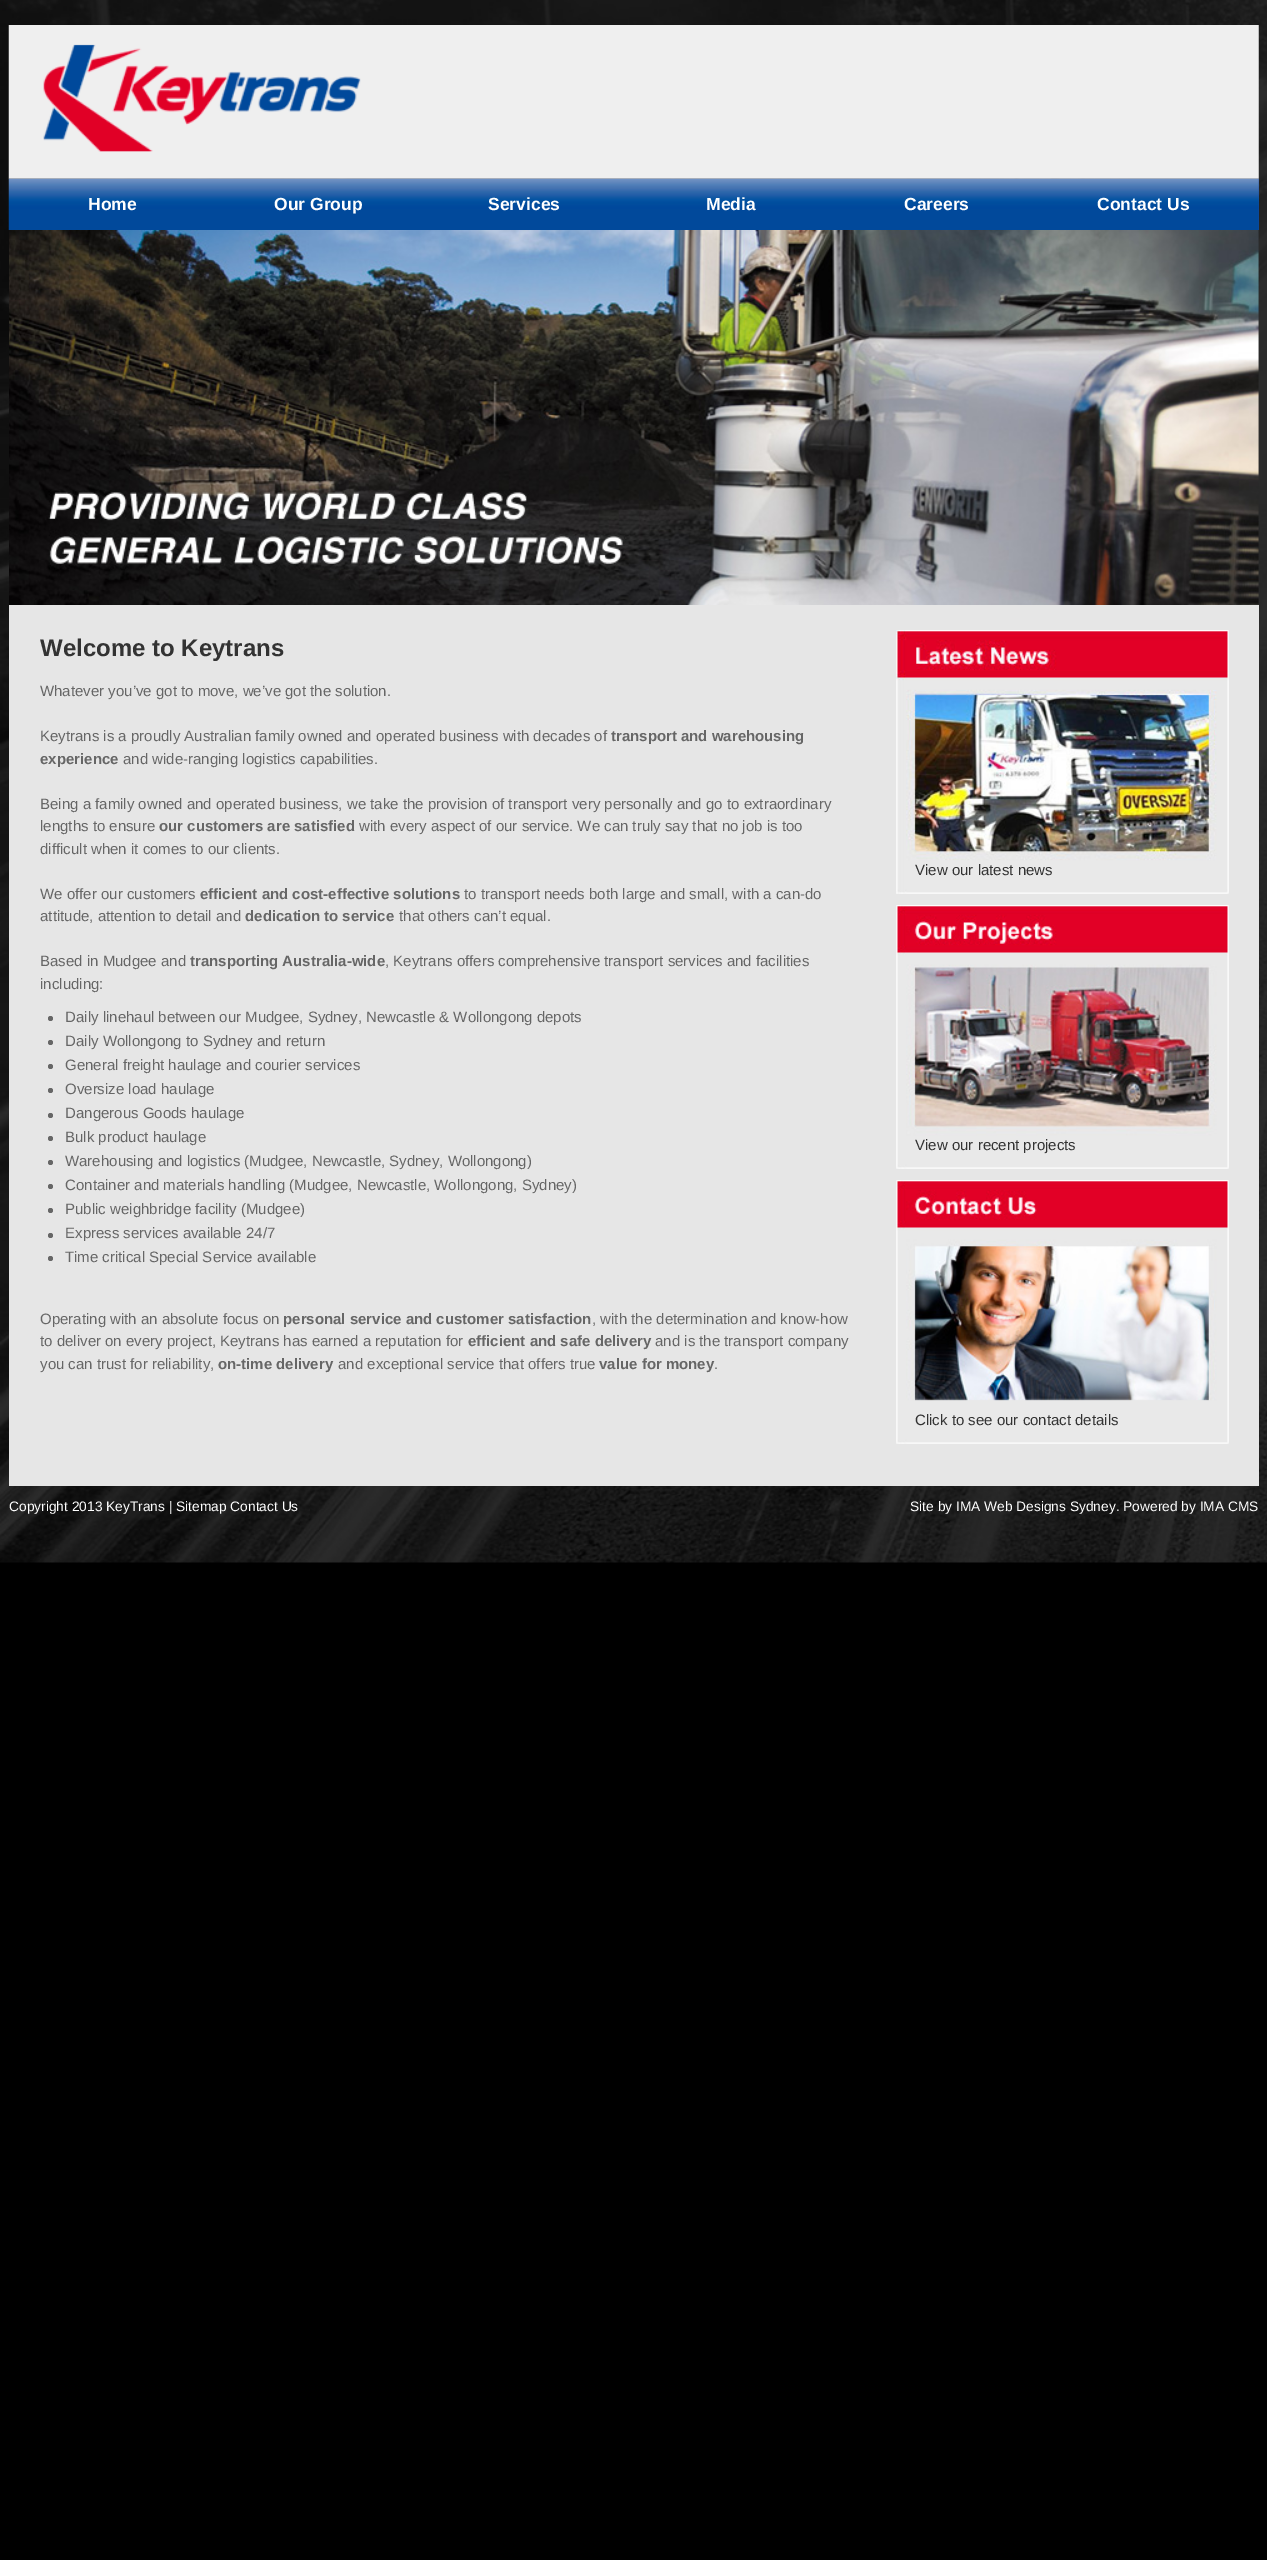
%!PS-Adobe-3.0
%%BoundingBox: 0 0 1267 2560
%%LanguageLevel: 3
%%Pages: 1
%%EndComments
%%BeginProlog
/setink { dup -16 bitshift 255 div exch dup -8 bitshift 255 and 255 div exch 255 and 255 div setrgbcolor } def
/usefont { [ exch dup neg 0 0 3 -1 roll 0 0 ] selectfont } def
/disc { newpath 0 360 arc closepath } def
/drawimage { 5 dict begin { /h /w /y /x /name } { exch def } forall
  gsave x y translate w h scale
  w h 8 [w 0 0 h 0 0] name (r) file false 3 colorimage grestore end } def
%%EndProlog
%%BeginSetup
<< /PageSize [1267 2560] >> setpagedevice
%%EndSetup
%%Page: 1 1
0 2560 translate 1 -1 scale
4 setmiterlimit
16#000000 setink
0 0 1267 2560 rectfill
(img1.raw) 0 0 1267 1563 drawimage
(img2.raw) 8 25 1251 154 drawimage
(img3.raw) 8 178 1251 52 drawimage
/LiberationSans-Bold 17.5 usefont
16#FFFFFF setink
[
    [(Home) 88 210]
    [(Our Group) 274 210]
    [(Services) 488 210]
    [(Media) 706 210]
    [(Careers) 904 210]
    [(Contact Us) 1097 210]
] { aload pop moveto show } forall
(img4.raw) 9 230 1250 375 drawimage
16#E6E6E6 setink
9 605 1250 881 rectfill
/LiberationSans-Bold 24 usefont
16#333333 setink
40 656 moveto (Welcome to Keytrans) show
/LiberationSans-Regular 15 usefont
16#666666 setink
40 696 moveto (Whatever you’ve got to move, we’ve got the solution.) show
40 741 moveto (Keytrans is a proudly Australian family owned and operated business with decades of) show
/LiberationSans-Bold 15 usefont
611 741 moveto (transport and warehousing) show
40 764 moveto (experience) show
/LiberationSans-Regular 15 usefont
[
    [(and wide-ranging logistics capabilities.) 123 764]
    [(Being a family owned and operated business, we take the provision of transport very personally and go to extraordinary) 40 809]
    [(lengths to ensure) 40 831]
] { aload pop moveto show } forall
/LiberationSans-Bold 15 usefont
159 831 moveto (our customers are satisfied) show
/LiberationSans-Regular 15 usefont
[
    [(with every aspect of our service. We can truly say that no job is too) 359 831]
    [(difficult when it comes to our clients.) 40 854]
    [(We offer our customers) 40 899]
] { aload pop moveto show } forall
/LiberationSans-Bold 15 usefont
200 899 moveto (efficient and cost-effective solutions) show
/LiberationSans-Regular 15 usefont
464 899 moveto (to transport needs both large and small, with a can-do) show
40 921 moveto (attitude, attention to detail and) show
/LiberationSans-Bold 15 usefont
245 921 moveto (dedication to service) show
/LiberationSans-Regular 15 usefont
399 921 moveto (that others can’t equal.) show
40 966 moveto (Based in Mudgee and) show
/LiberationSans-Bold 15 usefont
190 966 moveto (transporting Australia-wide) show
/LiberationSans-Regular 15 usefont
385 966 moveto (, Keytrans offers comprehensive transport services and facilities) show
40 989 moveto (including:) show
50.5 1018.5 2.5 disc fill
65 1022 moveto (Daily linehaul between our Mudgee, Sydney, Newcastle & Wollongong depots) show
50.5 1042.5 2.5 disc fill
65 1046 moveto (Daily Wollongong to Sydney and return) show
50.5 1066.5 2.5 disc fill
65 1070 moveto (General freight haulage and courier services) show
50.5 1090.5 2.5 disc fill
65 1094 moveto (Oversize load haulage) show
50.5 1115.5 2.5 disc fill
65 1118 moveto (Dangerous Goods haulage) show
50.5 1138.5 2.5 disc fill
65 1142 moveto (Bulk product haulage) show
50.5 1162.5 2.5 disc fill
65 1166 moveto (Warehousing and logistics \(Mudgee, Newcastle, Sydney, Wollongong\)) show
50.5 1186.5 2.5 disc fill
65 1190 moveto (Container and materials handling \(Mudgee, Newcastle, Wollongong, Sydney\)) show
50.5 1210.5 2.5 disc fill
65 1214 moveto (Public weighbridge facility \(Mudgee\)) show
50.5 1235.5 2.5 disc fill
65 1238 moveto (Express services available 24/7) show
50.5 1258.5 2.5 disc fill
65 1262 moveto (Time critical Special Service available) show
40 1324 moveto (Operating with an absolute focus on) show
/LiberationSans-Bold 15 usefont
283 1324 moveto (personal service and customer satisfaction) show
/LiberationSans-Regular 15 usefont
592 1324 moveto (, with the determination and know-how) show
40 1346 moveto (to deliver on every project, Keytrans has earned a reputation for) show
/LiberationSans-Bold 15 usefont
468 1346 moveto (efficient and safe delivery) show
/LiberationSans-Regular 15 usefont
655 1346 moveto (and is the transport company) show
40 1369 moveto (you can trust for reliability,) show
/LiberationSans-Bold 15 usefont
218 1369 moveto (on-time delivery) show
/LiberationSans-Regular 15 usefont
338 1369 moveto (and exceptional service that offers true) show
/LiberationSans-Bold 15 usefont
599 1369 moveto (value for money) show
/LiberationSans-Regular 15 usefont
714 1369 moveto (.) show
(img5.raw) 896 630 333 264 drawimage
16#333333 setink
915 875 moveto (View our latest news) show
(img6.raw) 896 905 333 264 drawimage
915 1150 moveto (View our recent projects) show
(img7.raw) 896 1180 333 264 drawimage
915 1425 moveto (Click to see our contact details) show
/LiberationSans-Regular 13.75 usefont
16#FFFFFF setink
9 1511 moveto (Copyright 2013 KeyTrans | Sitemap Contact Us) show
910 1511 moveto (Site by IMA Web Designs Sydney. Powered by IMA CMS) show
showpage
%%EOF
